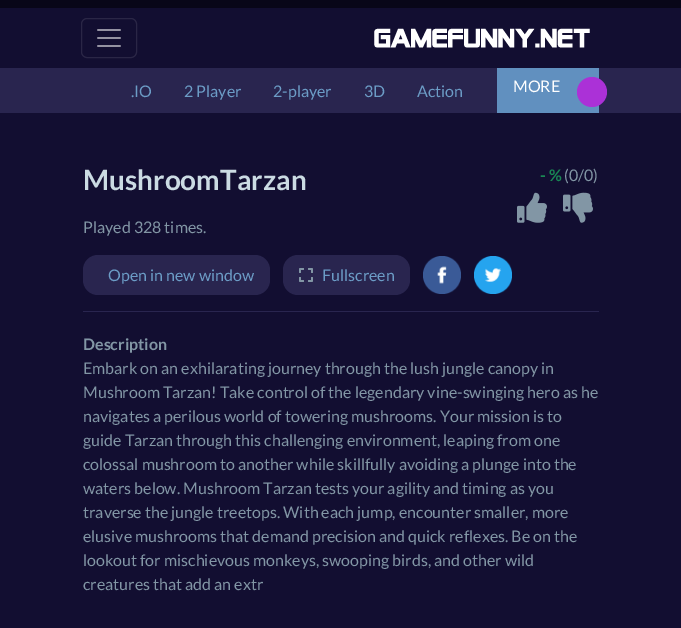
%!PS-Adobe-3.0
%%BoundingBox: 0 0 681 628
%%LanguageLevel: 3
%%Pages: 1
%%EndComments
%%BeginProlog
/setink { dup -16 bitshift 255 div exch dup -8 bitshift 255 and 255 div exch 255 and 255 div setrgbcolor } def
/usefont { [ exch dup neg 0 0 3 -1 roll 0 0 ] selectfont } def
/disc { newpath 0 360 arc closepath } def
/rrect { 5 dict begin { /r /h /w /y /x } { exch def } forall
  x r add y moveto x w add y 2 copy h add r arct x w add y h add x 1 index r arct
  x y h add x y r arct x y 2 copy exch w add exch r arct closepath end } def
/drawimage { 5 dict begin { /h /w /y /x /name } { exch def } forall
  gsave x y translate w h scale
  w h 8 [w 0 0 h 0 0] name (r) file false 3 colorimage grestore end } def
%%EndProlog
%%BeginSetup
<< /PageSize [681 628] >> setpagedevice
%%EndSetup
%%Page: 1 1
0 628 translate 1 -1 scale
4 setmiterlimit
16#080618 setink
0 0 681 628 rectfill
16#120E31 setink
0 8 681 620 rectfill
16#2A2646 setink
81.5 18.5 55 39 5.5 rrect stroke
(img1.raw) 97 29 24 18 drawimage
(img2.raw) 374 28 216 20 drawimage
16#29254F setink
0 68 681 45 rectfill
/Lato-Regular 16 usefont
16#6C9CC6 setink
[
    [(.IO) 131 97]
    [(2 Player) 184 97]
    [(2-player) 273 97]
    [(3D) 364 97]
    [(Action) 417 97]
] { aload pop moveto show } forall
16#6190BF setink
497 68 102 45 rectfill
16#FFFFFF setink
513 92 moveto (MORE) show
16#AB31D7 setink
592 92 15 disc fill
16#29254F setink
83 311 516 1 rectfill
/Lato-Bold 28 usefont
16#CBDBE3 setink
83 190 moveto (MushroomTarzan) show
/Lato-Regular 16 usefont
16#8296A5 setink
83 233 moveto (Played 328 times.) show
/Lato-Bold 16 usefont
16#198754 setink
540 181 moveto (- %) show
/Lato-Regular 16 usefont
16#8296A5 setink
564 181 moveto (\(0/0\)) show
(img3.raw) 517 192 30 31 drawimage
(img4.raw) 563 192 30 31 drawimage
16#29254F setink
83 255 187 40 15 rrect fill
16#6C9CC6 setink
108 281 moveto (Open in new window) show
16#29254F setink
283 255 127 40 15 rrect fill
(img5.raw) 299 268 14 14 drawimage
16#6C9CC6 setink
322 281 moveto (Fullscreen) show
(img6.raw) 423 256 38 38 drawimage
(img7.raw) 474 256 38 38 drawimage
/Lato-Bold 16 usefont
16#8296A5 setink
83 350 moveto (Description) show
/Lato-Regular 16 usefont
[
    [(Embark on an exhilarating journey through the lush jungle canopy in) 83 374]
    [(Mushroom Tarzan! Take control of the legendary vine-swinging hero as he) 83 398]
    [(navigates a perilous world of towering mushrooms. Your mission is to) 83 422]
    [(guide Tarzan through this challenging environment, leaping from one) 83 446]
    [(colossal mushroom to another while skillfully avoiding a plunge into the) 83 470]
    [(waters below. Mushroom Tarzan tests your agility and timing as you) 83 494]
    [(traverse the jungle treetops. With each jump, encounter smaller, more) 83 518]
    [(elusive mushrooms that demand precision and quick reflexes. Be on the) 83 542]
    [(lookout for mischievous monkeys, swooping birds, and other wild) 83 566]
    [(creatures that add an extr) 83 590]
] { aload pop moveto show } forall
showpage
%%EOF
